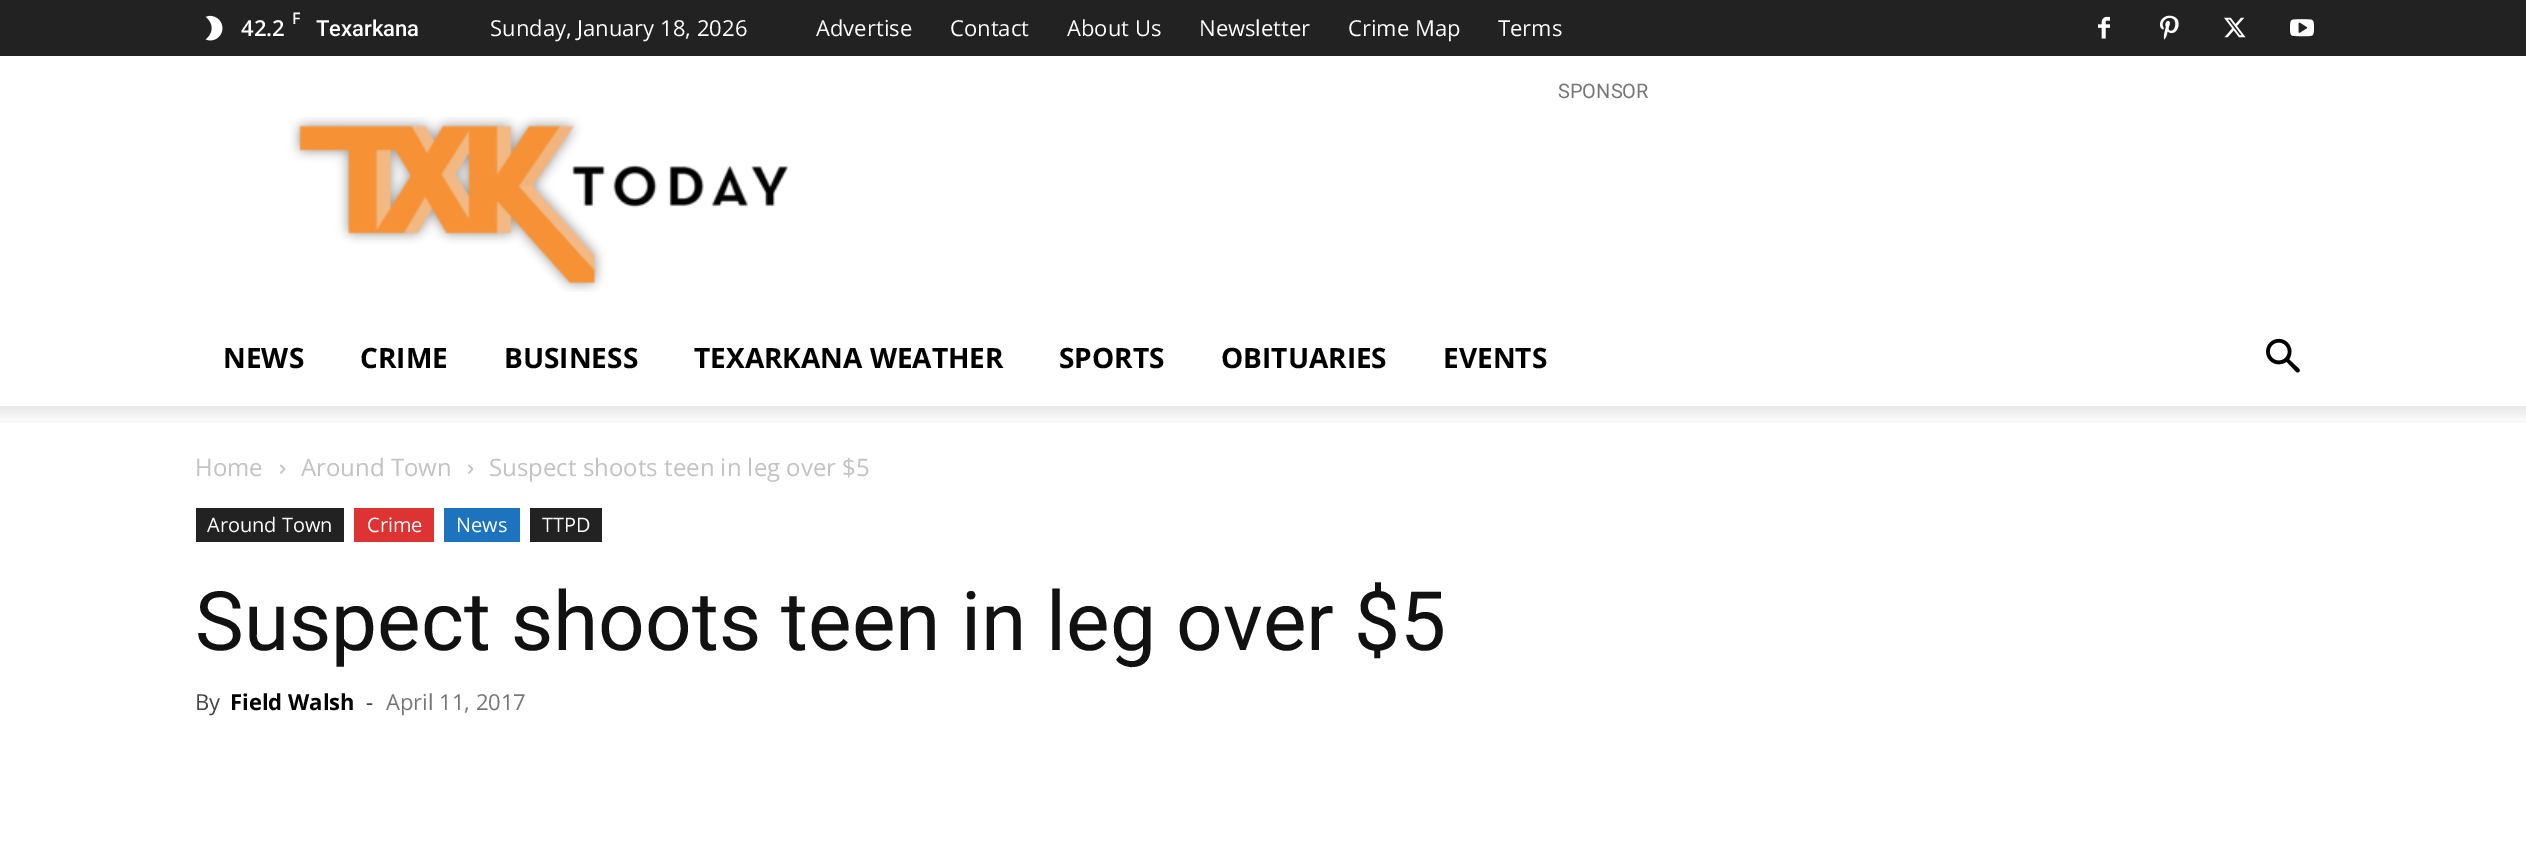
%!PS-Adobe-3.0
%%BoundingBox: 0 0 2526 863
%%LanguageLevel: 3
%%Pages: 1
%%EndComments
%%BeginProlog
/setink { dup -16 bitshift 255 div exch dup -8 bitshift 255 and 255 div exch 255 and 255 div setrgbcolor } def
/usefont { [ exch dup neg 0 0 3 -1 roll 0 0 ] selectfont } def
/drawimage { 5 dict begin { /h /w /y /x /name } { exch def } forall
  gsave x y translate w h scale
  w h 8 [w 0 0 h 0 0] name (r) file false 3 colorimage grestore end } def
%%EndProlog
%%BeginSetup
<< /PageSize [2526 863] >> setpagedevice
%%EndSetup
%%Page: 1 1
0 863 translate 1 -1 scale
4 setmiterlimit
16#FFFFFF setink
0 0 2526 863 rectfill
16#222222 setink
0 0 2526 56 rectfill
(img1.raw) 205 15 18 26 drawimage
/OpenSans-SemiBold 16 usefont
16#FFFFFF setink
292 24 moveto (F) show
/OpenSans-SemiBold 22 usefont
241 36 moveto (42.2) show
/Roboto-Medium 22 usefont
316 36 moveto (Texarkana) show
/OpenSans-Regular 22 usefont
[
    [(Sunday, January 18, 2026) 490 36]
    [(Advertise) 816 36]
    [(Contact) 950 36]
    [(About Us) 1067 36]
    [(Newsletter) 1199 36]
    [(Crime Map) 1348 36]
    [(Terms) 1498 36]
] { aload pop moveto show } forall
(img2.raw) 2098 16 12 23 drawimage
(img3.raw) 2160 15 19 25 drawimage
(img4.raw) 2224 17 22 21 drawimage
(img5.raw) 2290 19 24 18 drawimage
/Roboto-Regular 20 usefont
16#767676 setink
1558 98 moveto (SPONSOR) show
(img6.raw) 290 117 499 175 drawimage
/OpenSans-Bold 28 usefont
16#000000 setink
[
    [(NEWS) 223 368]
    [(CRIME) 360 368]
    [(BUSINESS) 504 368]
    [(TEXARKANA WEATHER) 694 368]
    [(SPORTS) 1059 368]
    [(OBITUARIES) 1221 368]
    [(EVENTS) 1443 368]
] { aload pop moveto show } forall
(img7.raw) 2266 338 34 35 drawimage
(img8.raw) 0 406 2526 17 drawimage
/OpenSans-Regular 24 usefont
16#C3C3C3 setink
195 476 moveto (Home) show
(img9.raw) 280 464 6 10 drawimage
301 476 moveto (Around Town) show
(img9.raw) 468 464 6 10 drawimage
489 476 moveto (Suspect shoots teen in leg over $5) show
16#222222 setink
196 508 148 34 rectfill
/OpenSans-Regular 20 usefont
16#FFFFFF setink
207 532 moveto (Around Town) show
16#DD3333 setink
354 508 80 34 rectfill
16#FFFFFF setink
367 532 moveto (Crime) show
16#1E73BE setink
444 508 76 34 rectfill
16#FFFFFF setink
456 532 moveto (News) show
16#222222 setink
530 508 72 34 rectfill
16#FFFFFF setink
542 532 moveto (TTPD) show
/Roboto-Regular 82 usefont
16#111111 setink
195 650 moveto (Suspect shoots teen in leg over $5) show
/OpenSans-Regular 22 usefont
16#444444 setink
195 710 moveto (By) show
/OpenSans-Bold 22 usefont
16#000000 setink
230 710 moveto (Field Walsh) show
/OpenSans-Regular 22 usefont
16#444444 setink
366 710 moveto (-) show
16#767676 setink
386 710 moveto (April 11, 2017) show
showpage
%%EOF
